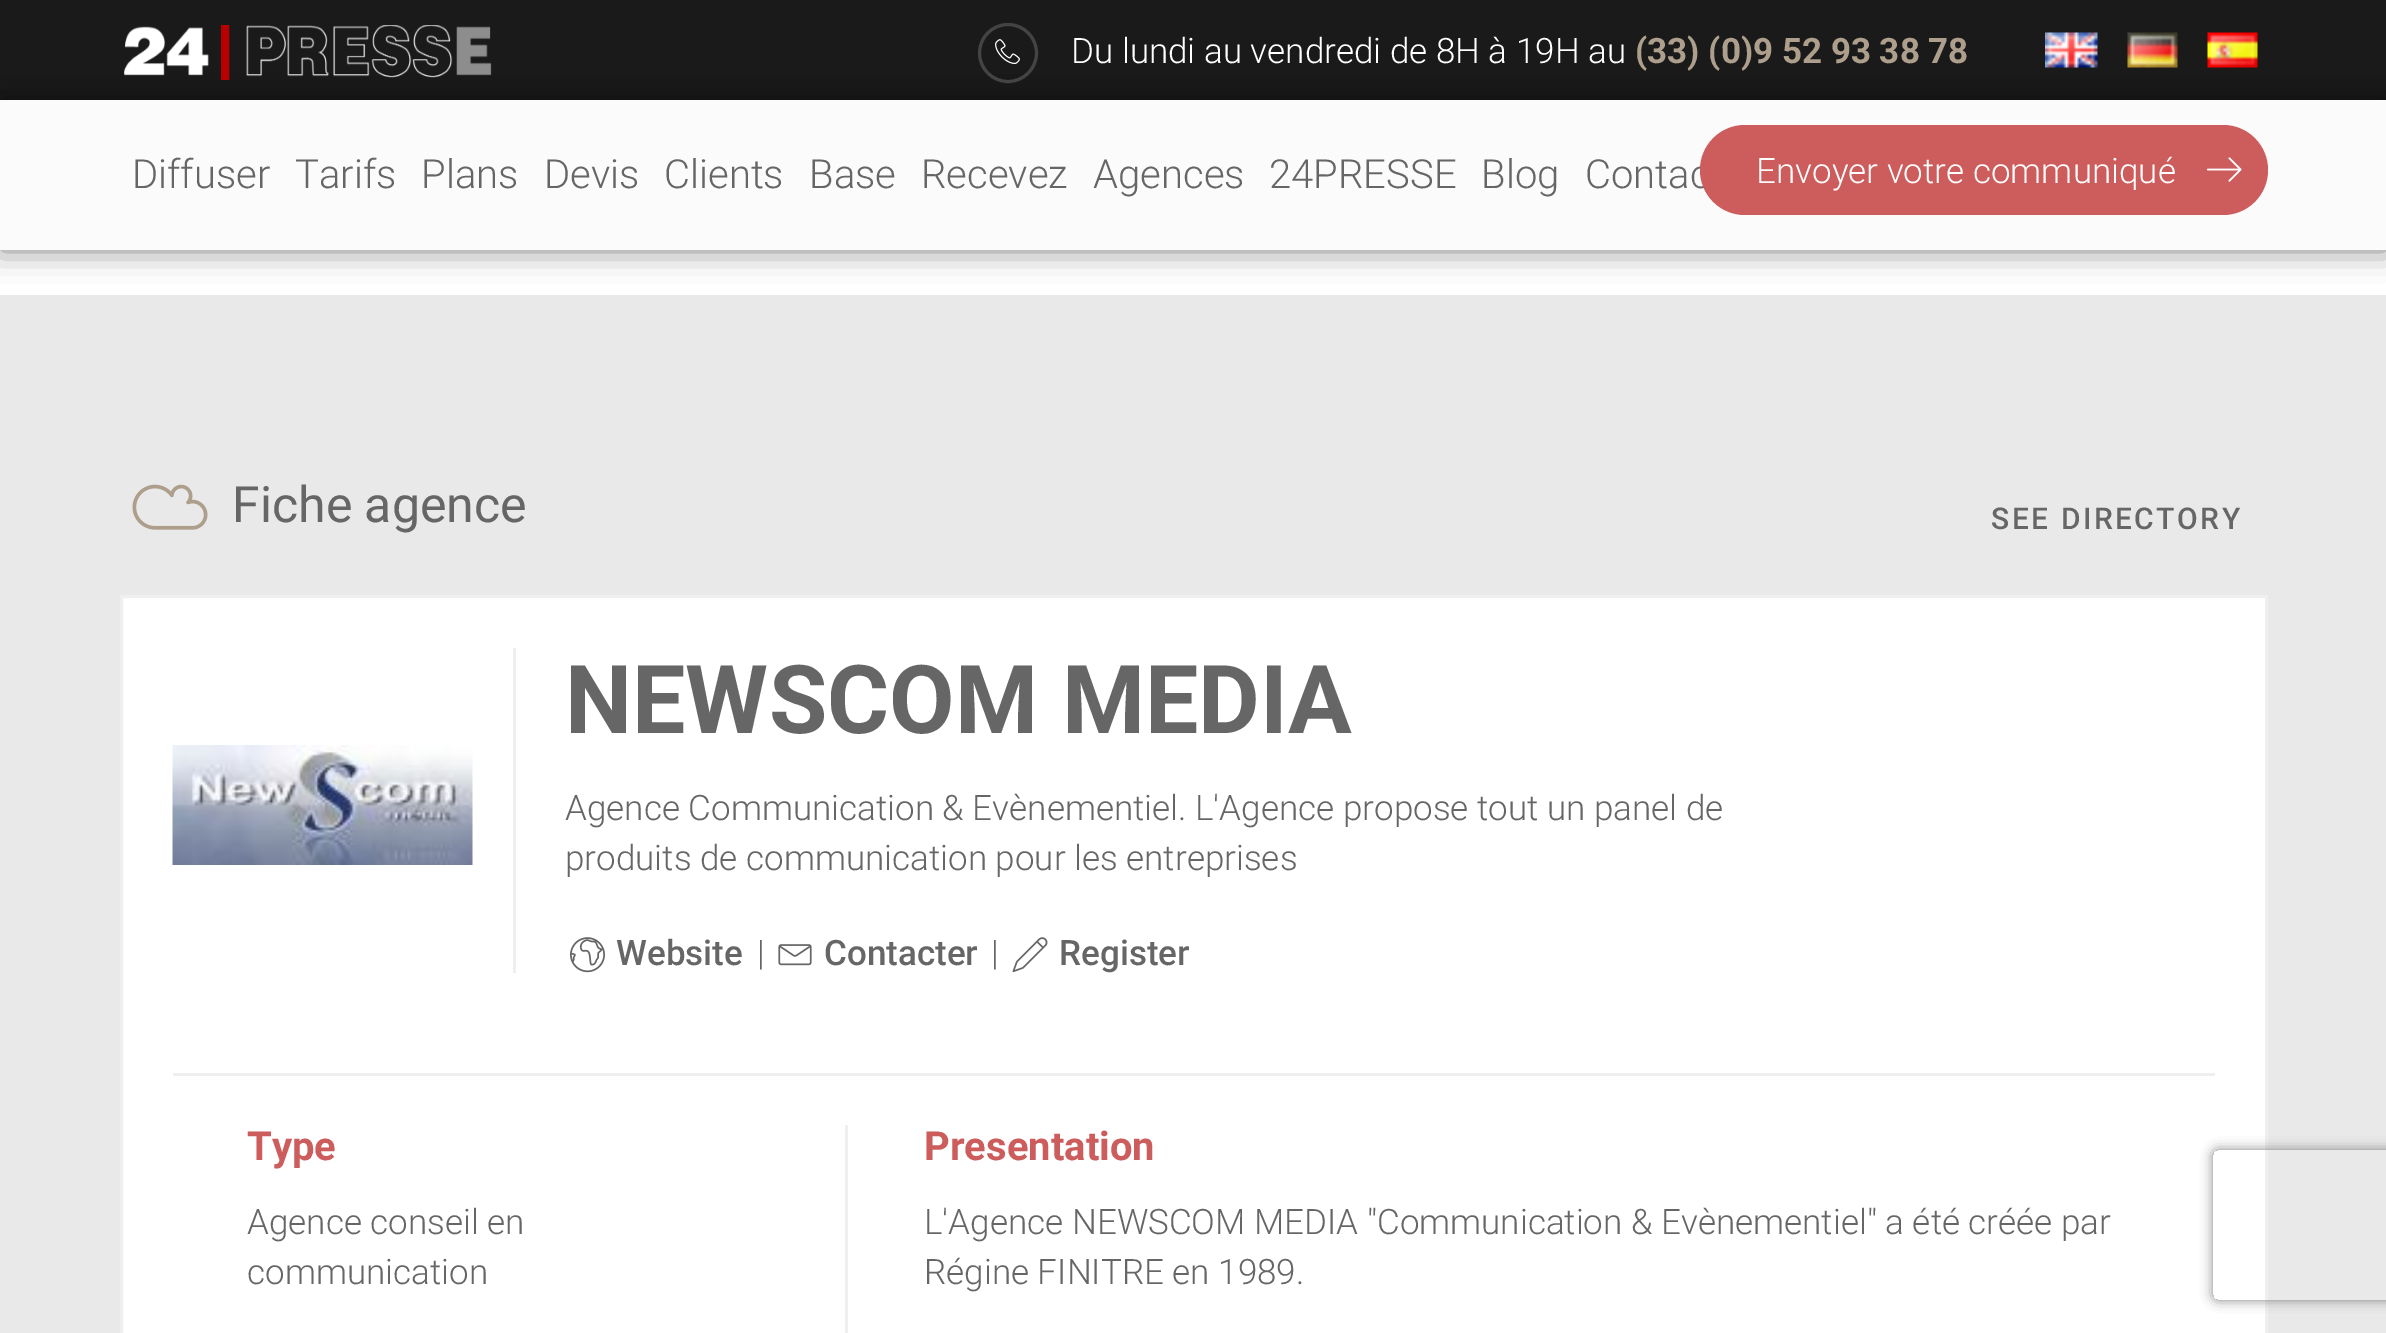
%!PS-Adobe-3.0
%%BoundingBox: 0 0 2386 1333
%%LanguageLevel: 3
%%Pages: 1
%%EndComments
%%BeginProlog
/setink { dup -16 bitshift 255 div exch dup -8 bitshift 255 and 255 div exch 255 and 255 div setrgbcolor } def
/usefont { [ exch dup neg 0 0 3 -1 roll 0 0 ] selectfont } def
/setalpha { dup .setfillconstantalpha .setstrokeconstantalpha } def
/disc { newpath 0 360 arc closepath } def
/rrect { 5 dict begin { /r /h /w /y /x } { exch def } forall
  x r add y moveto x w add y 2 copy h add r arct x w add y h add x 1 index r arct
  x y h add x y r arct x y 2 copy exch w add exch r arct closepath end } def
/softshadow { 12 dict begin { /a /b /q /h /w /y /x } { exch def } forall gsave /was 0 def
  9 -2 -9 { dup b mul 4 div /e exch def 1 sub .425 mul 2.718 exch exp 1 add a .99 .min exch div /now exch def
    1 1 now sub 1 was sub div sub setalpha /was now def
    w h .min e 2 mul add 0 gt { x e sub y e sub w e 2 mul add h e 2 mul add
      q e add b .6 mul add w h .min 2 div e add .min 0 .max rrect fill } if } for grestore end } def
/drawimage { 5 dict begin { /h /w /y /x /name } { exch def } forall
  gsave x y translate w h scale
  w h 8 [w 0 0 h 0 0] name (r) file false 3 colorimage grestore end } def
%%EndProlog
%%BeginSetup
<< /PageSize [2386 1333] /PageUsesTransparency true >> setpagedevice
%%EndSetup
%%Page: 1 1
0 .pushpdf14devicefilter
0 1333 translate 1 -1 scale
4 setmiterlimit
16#FFFFFF setink
0 0 2386 1333 rectfill
16#1A1A1A setink
0 0 2386 100 rectfill
16#E9E9E9 setink
0 295 2386 1038 rectfill
16#000000 setink
0 100 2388 150 0 15 0.5 softshadow
(img1.raw) 124 25 368 55 drawimage
16#444444 setink
3 setlinewidth
1008 53 28.5 disc stroke
/Roboto-Light 35 usefont
16#FFFFFF setink
1071 63 moveto (Du lundi au vendredi de 8H à 19H au) show
/Roboto-Bold 35 usefont
16#AD9F8C setink
1635 63 moveto (\(33\) \(0\)9 52 93 38 78) show
(img2.raw) 995 39 25 26 drawimage
(img3.raw) 2045 32 53 36 drawimage
(img4.raw) 2127 32 51 36 drawimage
(img5.raw) 2207 32 51 36 drawimage
16#FBFBFB setink
0 100 2386 150 rectfill
/Roboto-Light 40 usefont
16#666666 setink
[
    [(Diffuser) 132 188]
    [(Tarifs) 295 188]
    [(Plans) 421 188]
    [(Devis) 544 188]
    [(Clients) 664 188]
    [(Base) 809 188]
    [(Recevez) 921 188]
    [(Agences) 1093 188]
    [(24PRESSE) 1269 188]
    [(Blog) 1481 188]
    [(Contac) 1585 188]
] { aload pop moveto show } forall
16#CD5C5C setink
1700 125 568 90 45 rrect fill
/Roboto-Light 35 usefont
16#FFFFFF setink
1756 183 moveto (Envoyer votre communiqué) show
(img6.raw) 2206 157 36 25 drawimage
(img7.raw) 132 484 76 46 drawimage
/Roboto-Regular 50 usefont
16#666666 setink
232 522 moveto (Fiche agence) show
/Roboto-Medium 30 usefont
1991 529 moveto 2.5 0 (SEE DIRECTORY) ashow
16#FFFFFF setink
121.5 596.5 moveto 2266.5 596.5 lineto 2266.5 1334.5 lineto 121.5 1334.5 lineto closepath gsave fill grestore
16#EFEFEF setink
stroke
173 1073 2042 3 rectfill
(img8.raw) 172 745 301 120 drawimage
513 648 3 325 rectfill
/Roboto-Bold 95 usefont
16#666666 setink
565 733 moveto (NEWSCOM MEDIA) show
/Roboto-Light 35 usefont
565 820 moveto (Agence Communication & Evènementiel. L'Agence propose tout un panel de) show
565 870 moveto (produits de communication pour les entreprises) show
(img9.raw) 570 937 35 36 drawimage
/Roboto-Medium 35 usefont
616 965 moveto (Website) show
/Roboto-Light 35 usefont
757 965 moveto (|) show
(img10.raw) 778 944 34 22 drawimage
/Roboto-Medium 35 usefont
824 965 moveto (Contacter) show
/Roboto-Light 35 usefont
991 965 moveto (|) show
(img11.raw) 1012 937 36 36 drawimage
/Roboto-Medium 35 usefont
1059 965 moveto (Register) show
16#EFEFEF setink
845 1125 3 208 rectfill
/Roboto-Bold 40 usefont
16#CD5C5C setink
247 1160 moveto (Type) show
/Roboto-Light 35 usefont
16#666666 setink
247 1234 moveto (Agence conseil en) show
247 1284 moveto (communication) show
/Roboto-Bold 40 usefont
16#CD5C5C setink
924 1160 moveto (Presentation) show
/Roboto-Light 35 usefont
16#666666 setink
924 1234 moveto (L'Agence NEWSCOM MEDIA "Communication & Evènementiel" a été créée par) show
924 1284 moveto (Régine FINITRE en 1989.) show
gsave
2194 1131 moveto 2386 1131 lineto 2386 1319 lineto 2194 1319 lineto closepath 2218 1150 moveto 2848 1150 lineto 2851 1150 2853 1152 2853 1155 curveto 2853 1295 lineto 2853 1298 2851 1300 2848 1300 curveto 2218 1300 lineto 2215 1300 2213 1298 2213 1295 curveto 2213 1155 lineto 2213 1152 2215 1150 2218 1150 curveto closepath eoclip newpath
16#808080 setink
2213 1150 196 150 5 6 1 softshadow
grestore
.poppdf14devicefilter showpage
%%EOF
